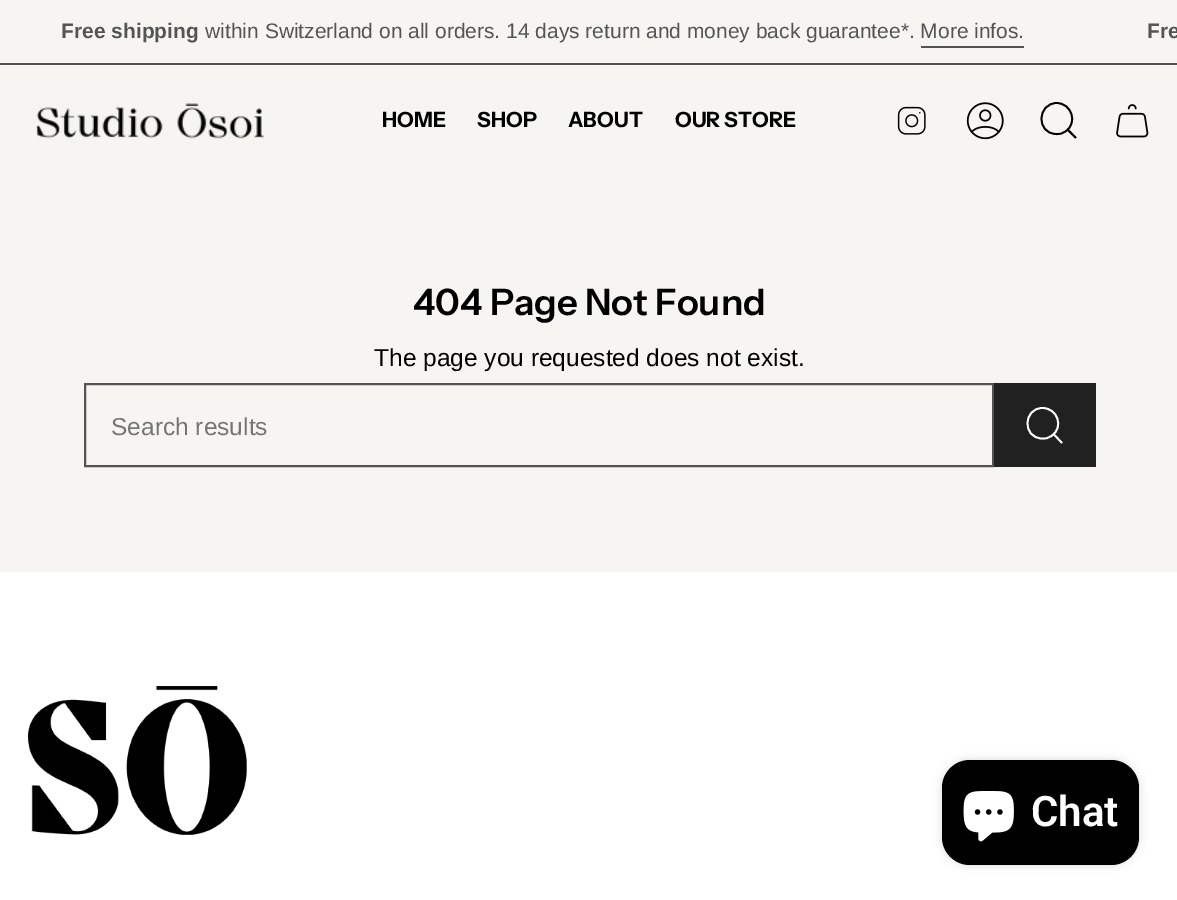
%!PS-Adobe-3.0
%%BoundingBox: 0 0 1177 900
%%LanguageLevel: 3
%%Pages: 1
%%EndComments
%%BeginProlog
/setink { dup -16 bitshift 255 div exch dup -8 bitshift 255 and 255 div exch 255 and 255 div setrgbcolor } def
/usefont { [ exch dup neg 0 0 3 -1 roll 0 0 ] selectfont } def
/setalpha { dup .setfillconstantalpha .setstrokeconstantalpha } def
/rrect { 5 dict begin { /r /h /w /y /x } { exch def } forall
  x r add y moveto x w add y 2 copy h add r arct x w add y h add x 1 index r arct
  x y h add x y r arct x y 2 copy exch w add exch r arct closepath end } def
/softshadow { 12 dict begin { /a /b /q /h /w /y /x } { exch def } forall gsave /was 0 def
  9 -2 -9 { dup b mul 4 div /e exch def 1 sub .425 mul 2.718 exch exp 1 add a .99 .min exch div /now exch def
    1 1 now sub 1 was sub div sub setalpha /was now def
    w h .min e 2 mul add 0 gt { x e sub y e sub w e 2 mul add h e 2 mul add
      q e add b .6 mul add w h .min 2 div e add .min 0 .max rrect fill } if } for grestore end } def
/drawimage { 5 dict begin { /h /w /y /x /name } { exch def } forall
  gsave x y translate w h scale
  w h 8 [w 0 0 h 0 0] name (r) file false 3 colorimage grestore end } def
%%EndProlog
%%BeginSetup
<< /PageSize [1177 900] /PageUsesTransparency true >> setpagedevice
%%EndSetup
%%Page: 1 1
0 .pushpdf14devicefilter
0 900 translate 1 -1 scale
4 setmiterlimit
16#F6F5F1 setink
0 0 1177 900 rectfill
16#545454 setink
0 63 1177 2 rectfill
/LiberationSans-Bold 21 usefont
61 38 moveto (Free shipping) show
/LiberationSans-Regular 21 usefont
205 38 moveto (within Switzerland on all orders. 14 days return and money back guarantee*. More infos.) show
921 46 103 2 rectfill
/LiberationSans-Bold 21 usefont
1147 38 moveto (Fre) show
(img1.raw) 36 103 229 36 drawimage
/InstrumentSans-Bold 21 usefont
16#000000 setink
[
    [(HOME) 382 127]
    [(SHOP) 477 127]
    [(ABOUT) 568 127]
    [(OUR STORE) 675 127]
] { aload pop moveto show } forall
(img2.raw) 897 106 29 29 drawimage
(img3.raw) 966 102 38 38 drawimage
1.8 setlinewidth
1056.5 103 moveto 1071.5 103 1078 122.5 1066 131 curveto 1063 133.5 1059.5 134.5 1056 134 curveto 1036 133.5 1037 103.5 1056.5 103 curveto closepath 1067.5 129.5 moveto 1076 138 lineto stroke
(img4.raw) 1116 104 33 34 drawimage
/InstrumentSans-SemiBold 36.5 usefont
413 315 moveto (404 Page Not Found) show
/LiberationSans-Regular 24.5 usefont
374 366 moveto (The page you requested does not exist.) show
16#545454 setink
2 setlinewidth
85 384 908 82 rectstroke
16#757575 setink
111 435 moveto (Search results) show
16#212121 setink
994 383 102 84 rectfill
16#FFFFFF setink
1.8 setlinewidth
1042.5 408 moveto 1057.5 408 1064 427 1052 435.5 curveto 1049 438 1045.5 439 1042 438.5 curveto 1022 438 1023 408 1042.5 408 curveto closepath 1053.5 434 moveto 1062 443 lineto stroke
0 572 1177 328 rectfill
(img5.raw) 28 686 219 149 drawimage
16#000000 setink
942 760 197 105 28 4.5 0.15 softshadow
942 760 197 105 28 rrect fill
(img6.raw) 963 791 51 51 drawimage
/Roboto-SemiBold 42 usefont
16#FFFFFF setink
1031 826 moveto (Chat) show
.poppdf14devicefilter showpage
%%EOF
